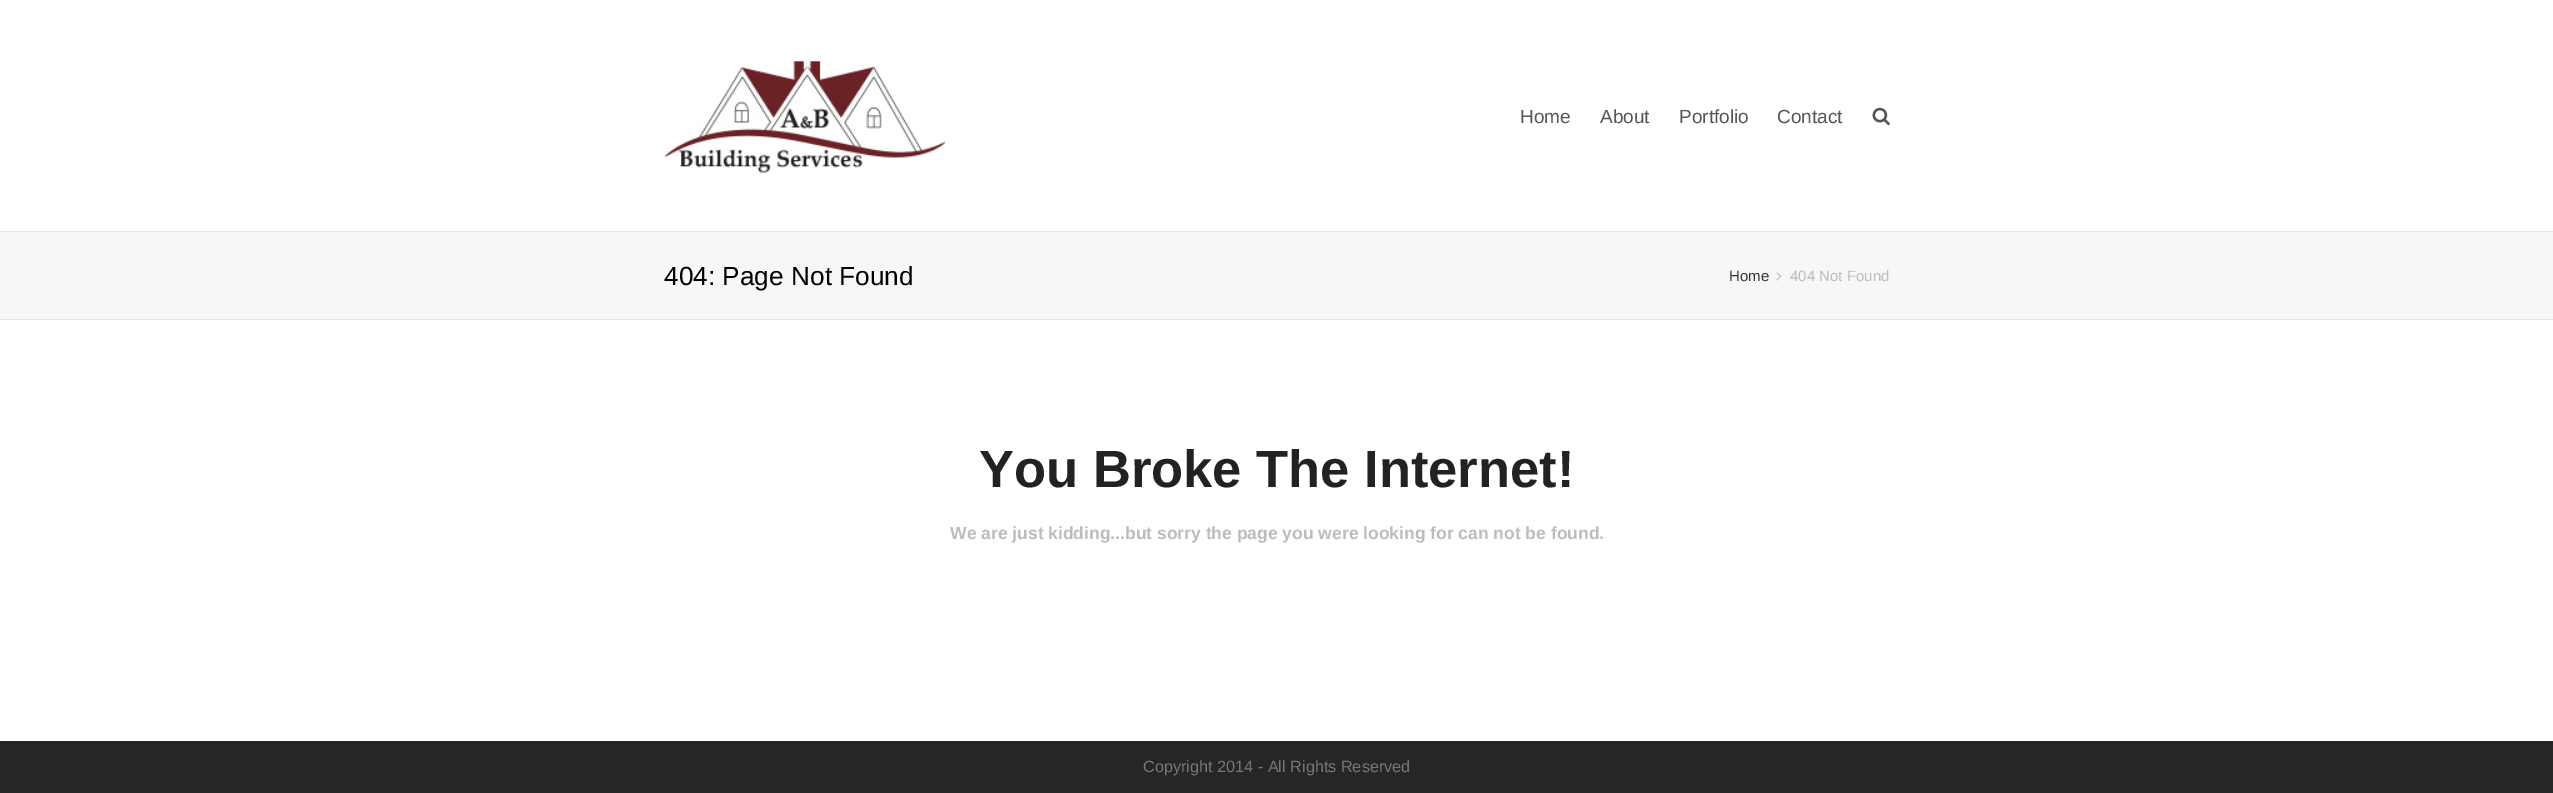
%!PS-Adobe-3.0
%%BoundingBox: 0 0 2553 793
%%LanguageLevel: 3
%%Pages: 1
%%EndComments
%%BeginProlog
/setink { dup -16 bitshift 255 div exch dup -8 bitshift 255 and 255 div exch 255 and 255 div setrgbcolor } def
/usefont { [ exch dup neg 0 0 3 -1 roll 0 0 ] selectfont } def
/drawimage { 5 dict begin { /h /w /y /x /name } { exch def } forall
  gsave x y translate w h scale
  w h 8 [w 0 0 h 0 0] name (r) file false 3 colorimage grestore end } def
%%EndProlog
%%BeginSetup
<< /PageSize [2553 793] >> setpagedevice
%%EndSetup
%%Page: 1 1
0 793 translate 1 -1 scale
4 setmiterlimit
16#FFFFFF setink
0 0 2553 793 rectfill
(img1.raw) 665 60 280 113 drawimage
/LiberationSans-Regular 19 usefont
16#555555 setink
[
    [(Home) 1520 123]
    [(About) 1600 123]
    [(Portfolio) 1679 123]
    [(Contact) 1777 123]
] { aload pop moveto show } forall
(img2.raw) 1872 107 18 19 drawimage
[
    [0 232 2553 87 16#F7F7F7]
    [0 231 2553 1 16#E4E4E4]
    [0 319 2553 1 16#E4E4E4]
] { aload pop setink rectfill } forall
/LiberationSans-Regular 26.25 usefont
16#000000 setink
664 285 moveto (404: Page Not Found) show
/LiberationSans-Regular 15 usefont
16#333333 setink
1729 281 moveto (Home) show
(img3.raw) 1776 272 6 9 drawimage
16#BCBCBC setink
1790 281 moveto (404 Not Found) show
/LiberationSans-Bold 52.5 usefont
16#222222 setink
979 487 moveto (You Broke The Internet!) show
/LiberationSans-Bold 17.5 usefont
16#BCBCBC setink
950 539 moveto (We are just kidding...but sorry the page you were looking for can not be found.) show
16#262626 setink
0 741 2553 52 rectfill
/LiberationSans-Regular 16.25 usefont
16#777777 setink
1143 772 moveto (Copyright 2014 - All Rights Reserved) show
showpage
%%EOF
